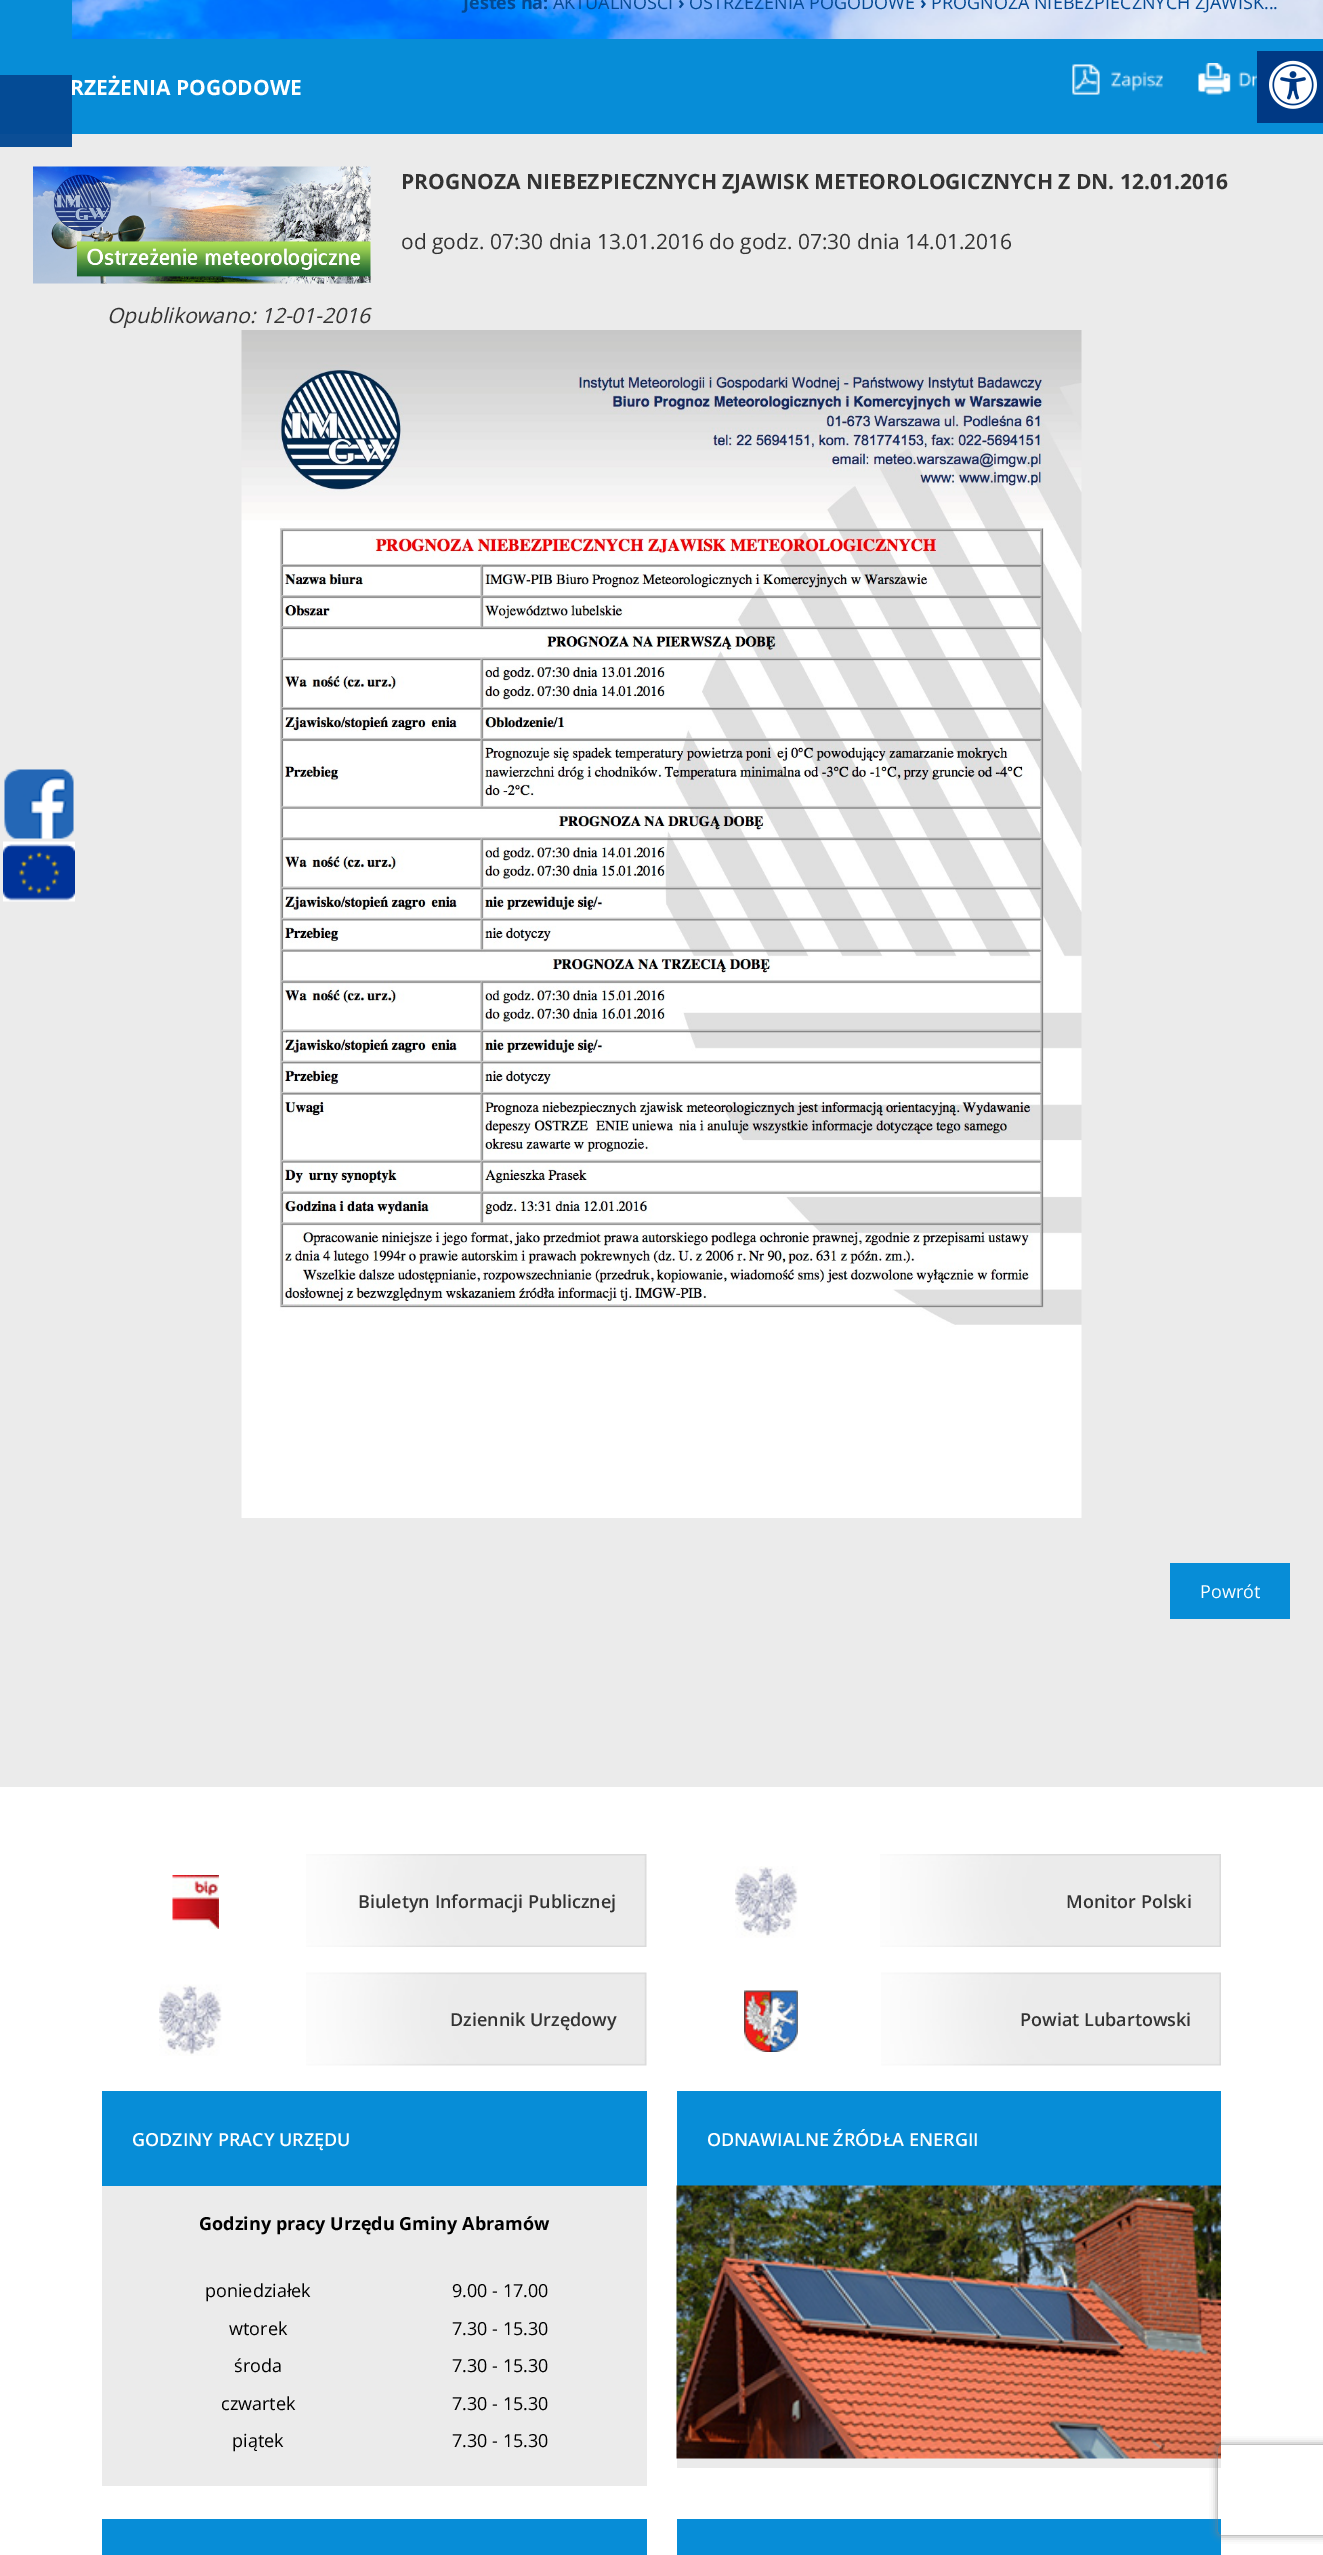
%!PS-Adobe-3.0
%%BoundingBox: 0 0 1323 2555
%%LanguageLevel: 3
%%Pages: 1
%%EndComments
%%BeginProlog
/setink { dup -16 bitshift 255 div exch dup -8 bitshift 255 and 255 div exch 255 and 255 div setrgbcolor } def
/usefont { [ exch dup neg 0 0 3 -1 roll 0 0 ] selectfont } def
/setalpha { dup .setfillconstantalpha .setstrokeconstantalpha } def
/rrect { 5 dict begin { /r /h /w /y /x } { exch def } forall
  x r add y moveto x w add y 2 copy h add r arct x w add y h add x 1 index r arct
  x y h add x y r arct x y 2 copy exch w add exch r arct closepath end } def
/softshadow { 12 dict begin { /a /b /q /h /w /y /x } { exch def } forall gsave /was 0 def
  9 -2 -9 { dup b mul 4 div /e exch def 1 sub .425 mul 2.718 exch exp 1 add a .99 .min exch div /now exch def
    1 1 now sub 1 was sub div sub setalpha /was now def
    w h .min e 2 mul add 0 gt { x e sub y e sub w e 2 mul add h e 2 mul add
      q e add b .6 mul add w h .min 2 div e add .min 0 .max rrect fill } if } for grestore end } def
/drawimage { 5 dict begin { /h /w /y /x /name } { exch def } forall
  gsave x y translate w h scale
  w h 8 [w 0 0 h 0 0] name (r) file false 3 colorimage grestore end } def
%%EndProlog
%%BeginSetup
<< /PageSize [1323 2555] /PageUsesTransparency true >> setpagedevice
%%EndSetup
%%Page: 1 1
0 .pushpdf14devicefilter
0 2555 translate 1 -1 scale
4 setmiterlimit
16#FFFFFF setink
0 0 1323 2555 rectfill
(img1.raw) 72 0 1251 39 drawimage
16#078DD7 setink
0 0 72 39 rectfill
/OpenSans-Bold 18 usefont
16#044993 setink
463 9 moveto (Jesteś na:) show
/OpenSans-Regular 18 usefont
553 9 moveto (AKTUALNOŚCI) show
/OpenSans-Bold 18 usefont
678 9 moveto (›) show
/OpenSans-Regular 18 usefont
689 9 moveto (OSTRZEŻENIA POGODOWE) show
/OpenSans-Bold 18 usefont
920 9 moveto (›) show
/OpenSans-Regular 18 usefont
931 9 moveto (PROGNOZA NIEBEZPIECZNYCH ZJAWISK...) show
16#EBEBEB setink
0 134 1323 1653 rectfill
16#078DD7 setink
0 39 1323 95 rectfill
/OpenSans-Bold 21 usefont
16#FFFFFF setink
70 95 moveto (RZEŻENIA POGODOWE) show
(img2.raw) 1072 64 91 31 drawimage
(img3.raw) 1198 63 59 32 drawimage
16#333333 setink
401 189 moveto (PROGNOZA NIEBEZPIECZNYCH ZJAWISK METEOROLOGICZNYCH Z DN. 12.01.2016) show
/OpenSans-Regular 21 usefont
401 249 moveto (od godz. 07:30 dnia 13.01.2016 do godz. 07:30 dnia 14.01.2016) show
(img4.raw) 33 166 338 118 drawimage
/OpenSans-Italic 21 usefont
107 323 moveto (Opublikowano: 12-01-2016) show
(img5.raw) 241 330 841 1188 drawimage
16#078DD7 setink
1170 1563 120 56 rectfill
/OpenSans-Regular 18 usefont
16#FFFFFF setink
1200 1598 moveto (Powrót) show
0.97 setalpha
16#044993 setink
0 75 72 72 rectfill
1 setalpha
(img6.raw) 306 1854 341 93 drawimage
(img7.raw) 172 1875 47 54 drawimage
/OpenSans-SemiBold 18 usefont
16#333333 setink
358 1908 moveto (Biuletyn Informacji Publicznej) show
(img8.raw) 880 1854 341 93 drawimage
(img9.raw) 735 1866 63 72 drawimage
1066 1908 moveto (Monitor Polski) show
(img10.raw) 306 1972 341 94 drawimage
(img11.raw) 159 1984 63 72 drawimage
450 2026 moveto (Dziennik Urzędowy) show
(img12.raw) 881 1972 340 94 drawimage
(img13.raw) 744 1990 54 62 drawimage
1020 2026 moveto (Powiat Lubartowski) show
16#EBEBEB setink
102 2186 545 300 rectfill
16#078DD7 setink
102 2091 545 95 rectfill
16#FFFFFF setink
132 2146 moveto (GODZINY PRACY URZĘDU) show
/OpenSans-Bold 18 usefont
16#000000 setink
199 2230 moveto (Godziny pracy Urzędu Gminy Abramów) show
/OpenSans-Regular 18 usefont
[
    [(poniedziałek) 205 2297]
    [(9.00 - 17.00) 452 2297]
    [(wtorek) 229 2335]
    [(7.30 - 15.30) 452 2335]
    [(środa) 234 2372]
    [(7.30 - 15.30) 452 2372]
    [(czwartek) 221 2410]
    [(7.30 - 15.30) 452 2410]
    [(piątek) 232 2447]
    [(7.30 - 15.30) 452 2447]
] { aload pop moveto show } forall
16#EBEBEB setink
677 2458 544 10 rectfill
16#078DD7 setink
677 2091 544 95 rectfill
/OpenSans-SemiBold 18 usefont
16#FFFFFF setink
707 2146 moveto (ODNAWIALNE ŹRÓDŁA ENERGII) show
(img14.raw) 676 2185 545 274 drawimage
[
    [102 2519 545 36 16#078DD7]
    [677 2519 544 36 16#078DD7]
    [1257 51 66 72 16#003984]
] { aload pop setink rectfill } forall
(img15.raw) 1269 60 48 49 drawimage
(img16.raw) 4 769 70 70 drawimage
(img17.raw) 3 841 72 61 drawimage
gsave
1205 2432 moveto 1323 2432 lineto 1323 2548 lineto 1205 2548 lineto closepath 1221 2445 moveto 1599 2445 lineto 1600.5 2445 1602 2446.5 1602 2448 curveto 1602 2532 lineto 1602 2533.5 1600.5 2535 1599 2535 curveto 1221 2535 lineto 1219.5 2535 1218 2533.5 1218 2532 curveto 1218 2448 lineto 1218 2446.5 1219.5 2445 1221 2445 curveto closepath eoclip newpath
16#808080 setink
1218 2445 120 90 3 4 1 softshadow
grestore
.poppdf14devicefilter showpage
%%EOF
